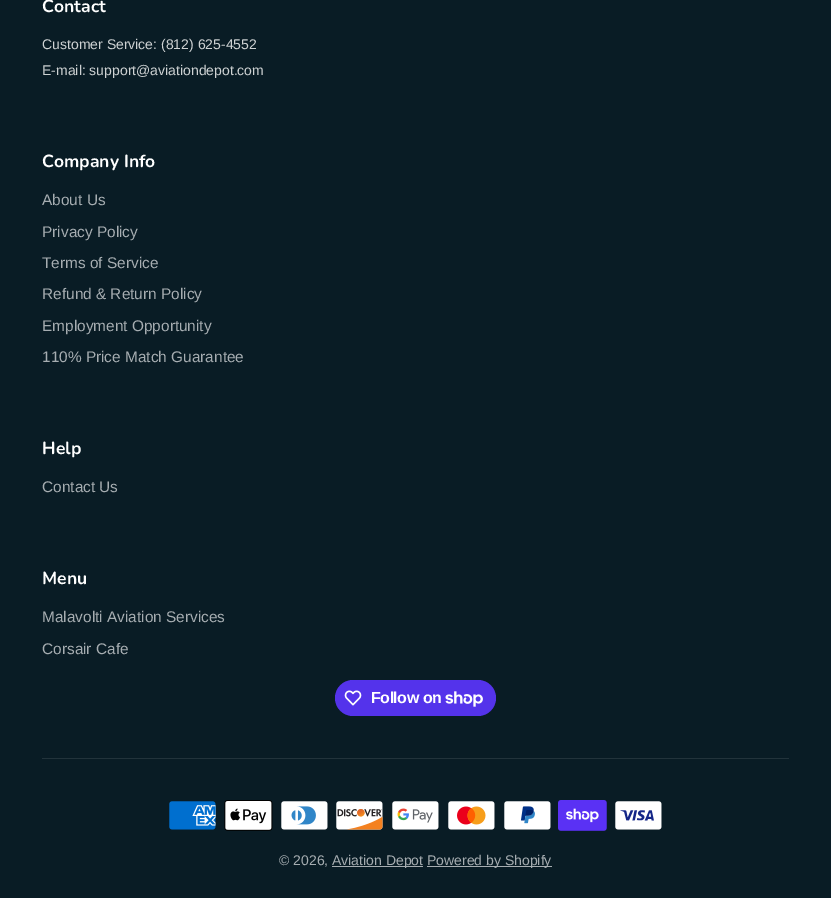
%!PS-Adobe-3.0
%%BoundingBox: 0 0 831 898
%%LanguageLevel: 3
%%Pages: 1
%%EndComments
%%BeginProlog
/setink { dup -16 bitshift 255 div exch dup -8 bitshift 255 and 255 div exch 255 and 255 div setrgbcolor } def
/usefont { [ exch dup neg 0 0 3 -1 roll 0 0 ] selectfont } def
/rrect { 5 dict begin { /r /h /w /y /x } { exch def } forall
  x r add y moveto x w add y 2 copy h add r arct x w add y h add x 1 index r arct
  x y h add x y r arct x y 2 copy exch w add exch r arct closepath end } def
/drawimage { 5 dict begin { /h /w /y /x /name } { exch def } forall
  gsave x y translate w h scale
  w h 8 [w 0 0 h 0 0] name (r) file false 3 colorimage grestore end } def
%%EndProlog
%%BeginSetup
<< /PageSize [831 898] >> setpagedevice
%%EndSetup
%%Page: 1 1
0 898 translate 1 -1 scale
4 setmiterlimit
16#091C25 setink
0 0 831 898 rectfill
/Nunito-Bold 17.5 usefont
16#FFFFFF setink
42 12 moveto (Contact) show
/LiberationSans-Regular 14 usefont
16#CED2D3 setink
42 49 moveto (Customer Service: \(812\) 625-4552) show
42 75 moveto (E-mail: support@aviationdepot.com) show
/Nunito-Bold 17.5 usefont
16#FFFFFF setink
42 167 moveto (Company Info) show
/LiberationSans-Regular 15.4 usefont
16#A6ADB1 setink
[
    [(About Us) 42 205]
    [(Privacy Policy) 42 237]
    [(Terms of Service) 42 268]
    [(Refund & Return Policy) 42 299]
    [(Employment Opportunity) 42 331]
    [(110% Price Match Guarantee) 42 362]
] { aload pop moveto show } forall
/Nunito-Bold 17.5 usefont
16#FFFFFF setink
42 454 moveto (Help) show
/LiberationSans-Regular 15.4 usefont
16#A6ADB1 setink
42 492 moveto (Contact Us) show
/Nunito-Bold 17.5 usefont
16#FFFFFF setink
42 584 moveto (Menu) show
/LiberationSans-Regular 15.4 usefont
16#A6ADB1 setink
42 622 moveto (Malavolti Aviation Services) show
42 654 moveto (Corsair Cafe) show
16#5433EB setink
335 680 161 36 18 rrect fill
(img1.raw) 344 690 18 16 drawimage
/LiberationSans-Bold 16 usefont
16#FFFFFF setink
371 703 moveto -0.5 0 (Follow on) ashow
(img2.raw) 445 691 38 16 drawimage
16#22333B setink
42 758 747 1 rectfill
(img3.raw) 169 801 47 29 drawimage
(img4.raw) 224 800 49 31 drawimage
(img5.raw) 281 801 47 29 drawimage
(img6.raw) 336 801 47 29 drawimage
(img7.raw) 392 801 47 29 drawimage
(img8.raw) 448 801 47 29 drawimage
(img9.raw) 504 801 47 29 drawimage
(img10.raw) 558 800 49 31 drawimage
(img11.raw) 615 801 47 29 drawimage
/LiberationSans-Regular 14 usefont
16#A6ADB1 setink
279 865 moveto (© 2026,) show
332 866 91 1 rectfill
332 865 moveto (Aviation Depot) show
427 866 125 1 rectfill
427 865 moveto (Powered by Shopify) show
showpage
%%EOF
